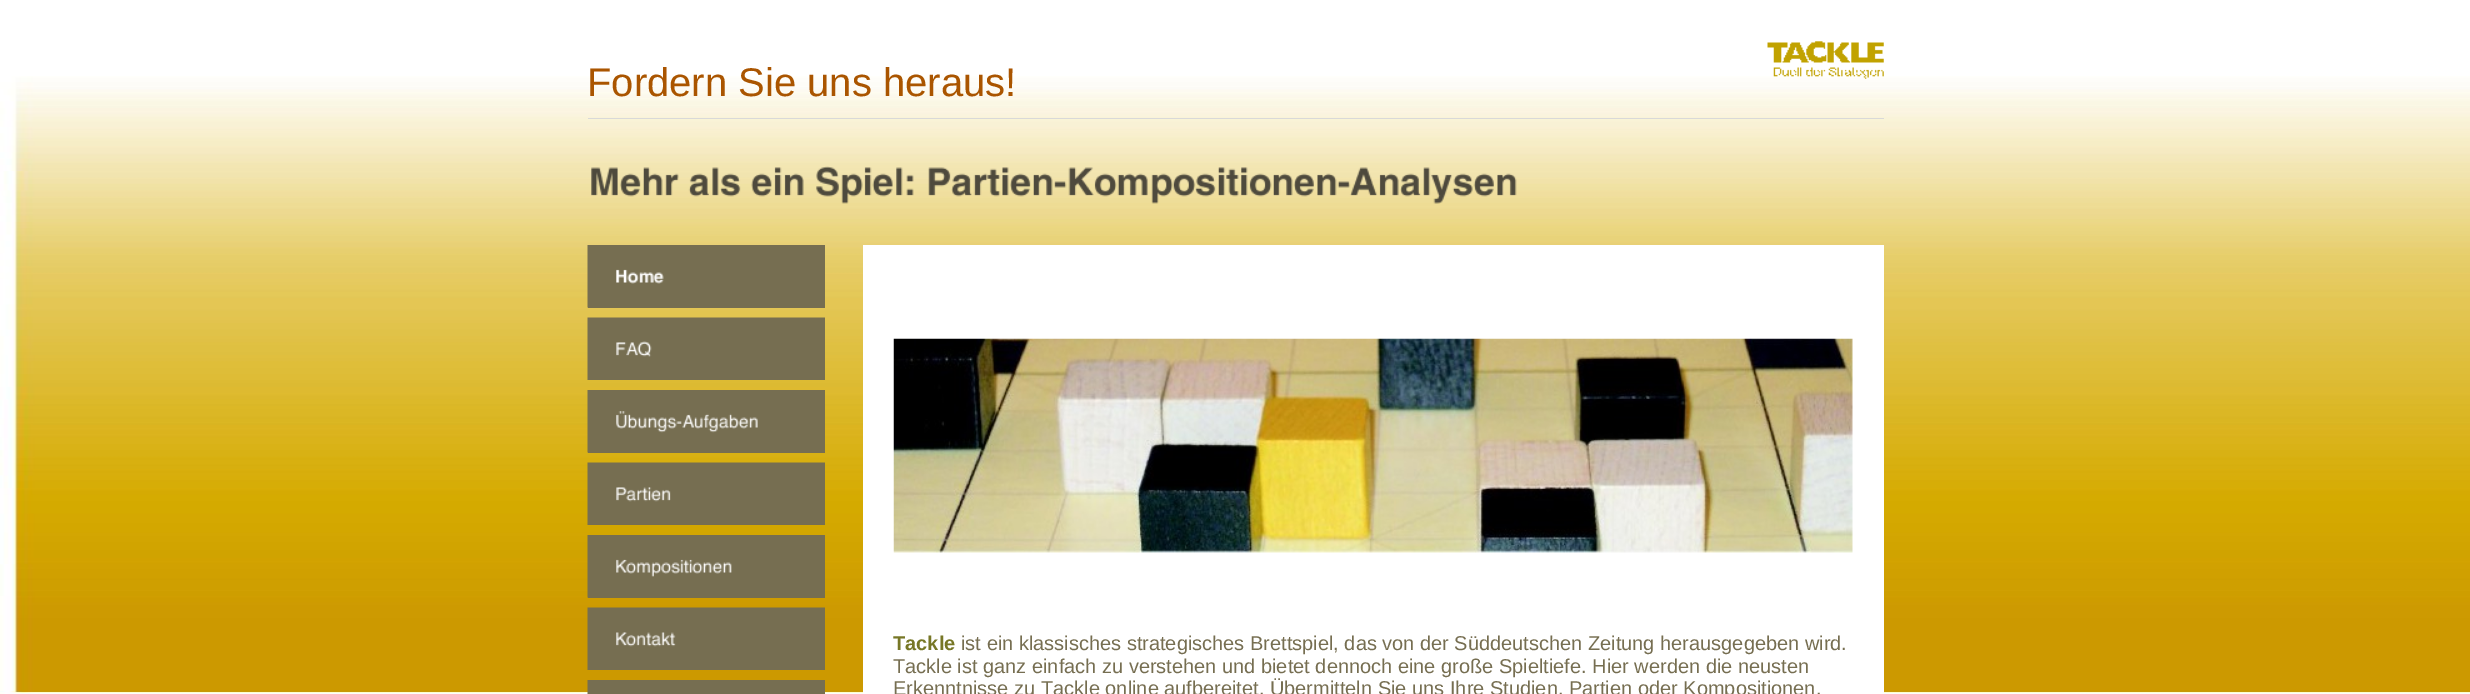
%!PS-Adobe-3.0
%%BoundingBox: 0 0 2470 694
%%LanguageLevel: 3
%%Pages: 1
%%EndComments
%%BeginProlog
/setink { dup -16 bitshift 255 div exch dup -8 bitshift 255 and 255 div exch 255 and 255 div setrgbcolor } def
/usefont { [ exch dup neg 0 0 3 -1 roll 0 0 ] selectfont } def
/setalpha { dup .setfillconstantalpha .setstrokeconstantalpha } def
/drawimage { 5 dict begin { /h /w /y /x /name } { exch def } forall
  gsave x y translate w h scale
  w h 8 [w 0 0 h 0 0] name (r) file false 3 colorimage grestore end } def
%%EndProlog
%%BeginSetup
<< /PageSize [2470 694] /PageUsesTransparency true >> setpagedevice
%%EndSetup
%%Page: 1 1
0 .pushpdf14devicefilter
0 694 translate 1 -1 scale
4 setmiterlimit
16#FFFFFF setink
0 0 2470 694 rectfill
(img10.raw) 0 76 2470 618 drawimage
(img1.raw) 1767 41 117 38 drawimage
/LiberationSans-Regular 40 usefont
16#AA5500 setink
587 96 moveto (Fordern Sie uns heraus!) show
16#D9D9D9 setink
588 118 1296 1 rectfill
(img2.raw) 591 166 926 38 drawimage
16#766E51 setink
588 245 237 63 rectfill
(img3.raw) 587 245 77 63 drawimage
(img4.raw) 587 317 238 63 drawimage
588 390 237 63 rectfill
(img5.raw) 587 390 171 63 drawimage
(img6.raw) 587 462 238 63 drawimage
588 535 237 63 rectfill
(img7.raw) 587 535 145 63 drawimage
(img8.raw) 587 607 238 63 drawimage
[
    [588 680 237 14 16#766E51]
] { aload pop setink rectfill } forall
0.5 setalpha
[
    [587 680 1 14 16#766E50]
] { aload pop setink rectfill } forall
1 setalpha
[
    [863 245 1021 449 16#FFFFFF]
] { aload pop setink rectfill } forall
(img9.raw) 893 338 960 215 drawimage
/LiberationSans-Bold 20 usefont
16#777726 setink
893 650 moveto (Tackle) show
/LiberationSans-Regular 20 usefont
16#766E51 setink
[
    [(ist ein klassisches strategisches Brettspiel, das von der Süddeutschen Zeitung herausgegeben wird.) 961 650]
    [(Tackle ist ganz einfach zu verstehen und bietet dennoch eine große Spieltiefe. Hier werden die neusten) 893 673]
    [(Erkenntnisse zu Tackle online aufbereitet. Übermitteln Sie uns Ihre Studien, Partien oder Kompositionen.) 893 695]
] { aload pop moveto show } forall
.poppdf14devicefilter showpage
%%EOF
